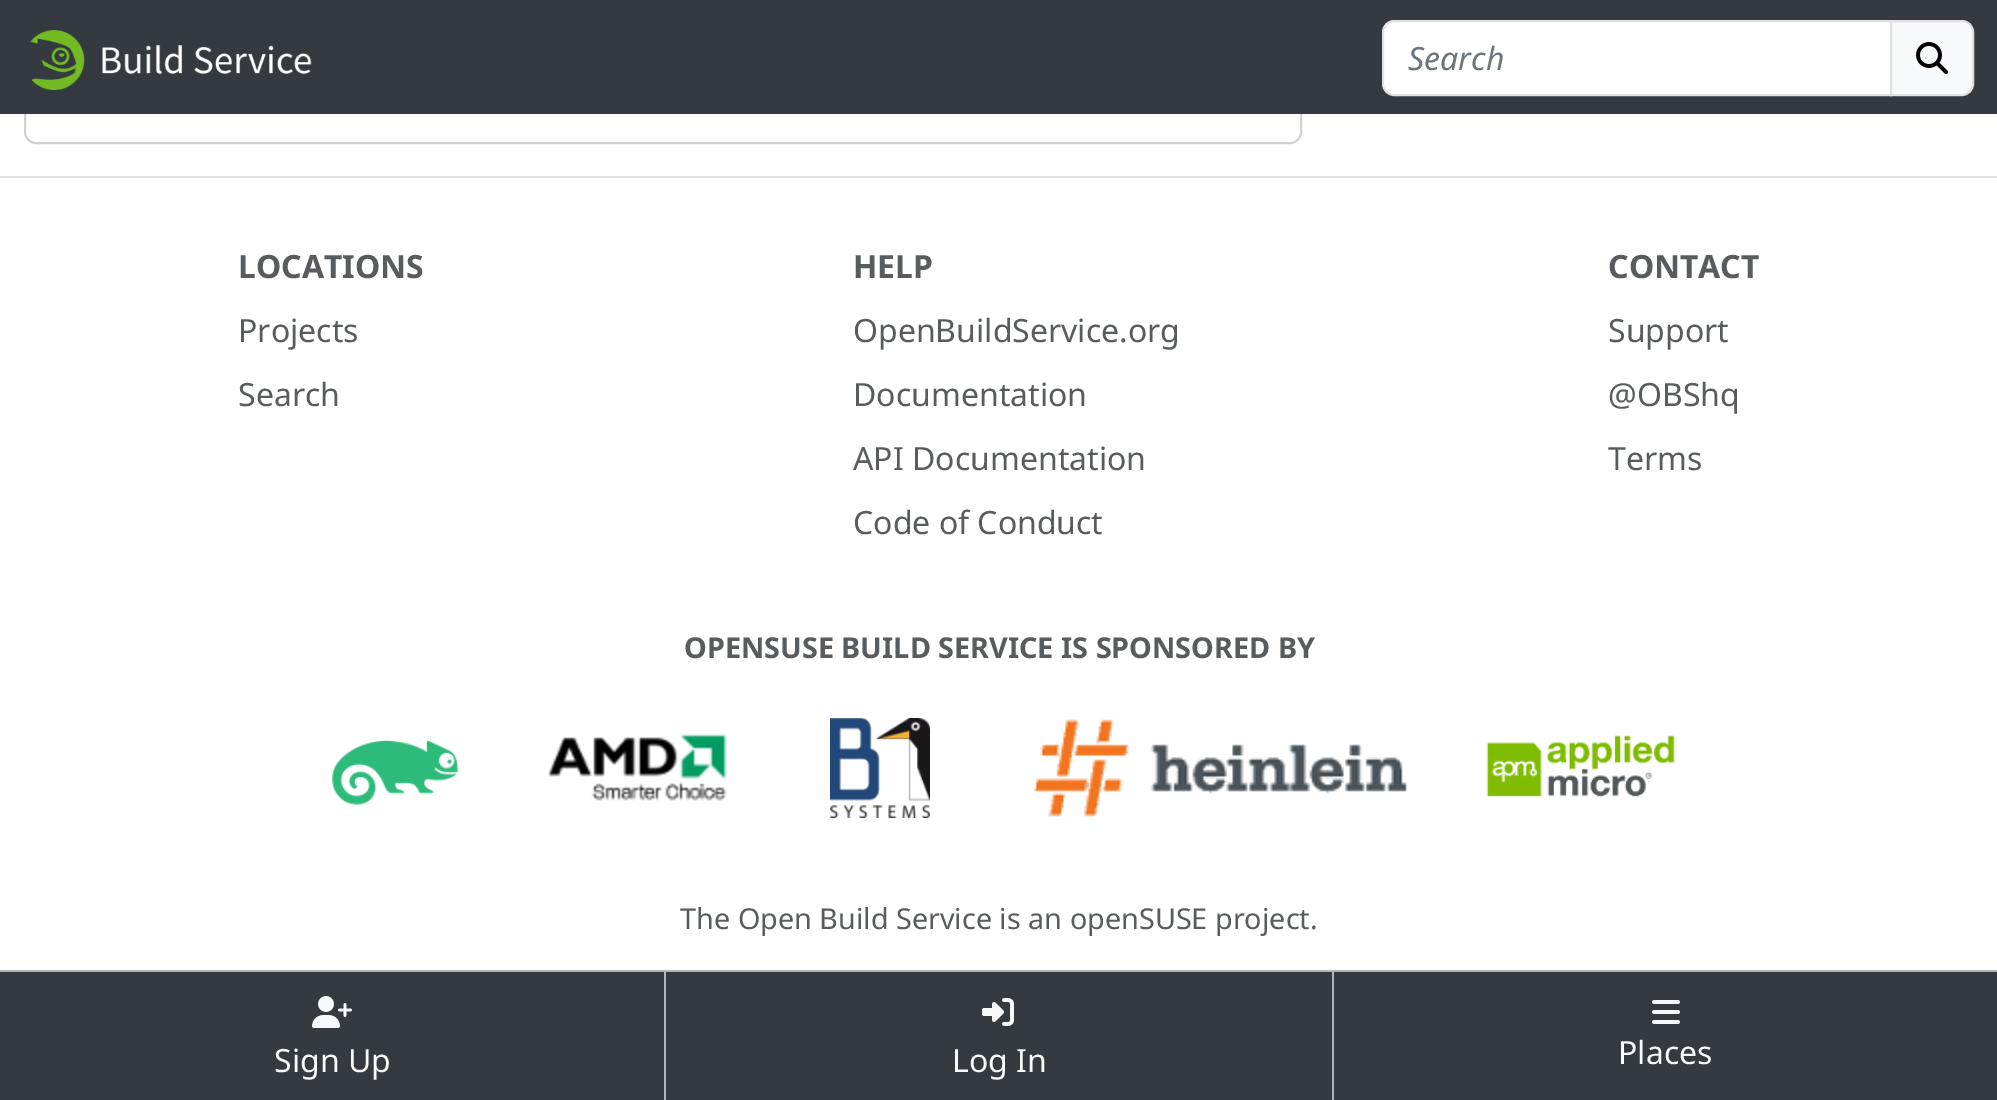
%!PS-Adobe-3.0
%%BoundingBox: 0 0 1997 1100
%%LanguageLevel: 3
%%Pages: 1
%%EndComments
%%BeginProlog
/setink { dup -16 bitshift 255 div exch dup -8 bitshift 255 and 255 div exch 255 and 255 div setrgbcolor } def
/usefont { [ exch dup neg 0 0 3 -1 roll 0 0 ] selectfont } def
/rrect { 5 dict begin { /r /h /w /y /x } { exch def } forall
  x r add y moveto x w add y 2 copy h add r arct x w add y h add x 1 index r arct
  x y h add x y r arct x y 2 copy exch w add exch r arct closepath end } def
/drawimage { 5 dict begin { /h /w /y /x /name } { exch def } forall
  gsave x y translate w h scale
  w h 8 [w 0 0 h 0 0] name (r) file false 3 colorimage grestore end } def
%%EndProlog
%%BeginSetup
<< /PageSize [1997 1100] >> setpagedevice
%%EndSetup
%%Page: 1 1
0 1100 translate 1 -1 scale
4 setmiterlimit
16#FFFFFF setink
0 0 1997 1100 rectfill
16#D2D2D2 setink
2 setlinewidth
25 -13 1276 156 11 rrect stroke
16#343A40 setink
0 0 1997 114 rectfill
(img1.raw) 30 30 282 60 drawimage
16#FFFFFF setink
1394 21 moveto 1891 21 lineto 1891 95 lineto 1394 95 lineto 1388 95 1383 90 1383 84 curveto 1383 32 lineto 1383 26 1388 21 1394 21 curveto closepath gsave fill grestore
16#DEE2E6 setink
stroke
/NotoSans-Italic 32 usefont
16#6C757D setink
1408 70 moveto (Search) show
16#F8F9FA setink
1891 21 moveto 1962 21 lineto 1968 21 1973 26 1973 32 curveto 1973 84 lineto 1973 90 1968 95 1962 95 curveto 1891 95 lineto closepath gsave fill grestore
16#DEE2E6 setink
stroke
(img2.raw) 1916 42 32 32 drawimage
0 176 1997 2 rectfill
/NotoSans-Bold 32 usefont
16#595C5F setink
238 278 moveto (LOCATIONS) show
/NotoSans-Regular 32 usefont
238 342 moveto (Projects) show
238 406 moveto (Search) show
/NotoSans-Bold 32 usefont
853 278 moveto (HELP) show
/NotoSans-Regular 32 usefont
[
    [(OpenBuildService.org) 853 342]
    [(Documentation) 853 406]
    [(API Documentation) 853 470]
    [(Code of Conduct) 853 534]
] { aload pop moveto show } forall
/NotoSans-Bold 32 usefont
1608 278 moveto (CONTACT) show
/NotoSans-Regular 32 usefont
[
    [(Support) 1608 342]
    [(@OBShq) 1608 406]
    [(Terms) 1608 470]
] { aload pop moveto show } forall
/NotoSans-Bold 28.8 usefont
684 658 moveto (OPENSUSE BUILD SERVICE IS SPONSORED BY) show
(img3.raw) 331 740 128 65 drawimage
(img4.raw) 548 733 179 68 drawimage
(img5.raw) 830 718 100 100 drawimage
(img6.raw) 1033 719 374 98 drawimage
(img7.raw) 1486 735 189 62 drawimage
/NotoSans-Regular 28.8 usefont
680 929 moveto (The Open Build Service is an openSUSE project.) show
[
    [0 972 1997 128 16#343A40]
    [0 970 1997 2 16#ADB5BD]
    [664 972 2 128 16#ADB5BD]
] { aload pop setink rectfill } forall
(img8.raw) 312 996 40 32 drawimage
/NotoSans-Regular 32 usefont
16#F8F9FA setink
274 1072 moveto (Sign Up) show
(img9.raw) 982 998 32 28 drawimage
952 1072 moveto (Log In) show
16#ADB5BD setink
1332 972 2 128 rectfill
(img10.raw) 1652 1000 28 24 drawimage
16#F8F9FA setink
1618 1064 moveto (Places) show
showpage
%%EOF
